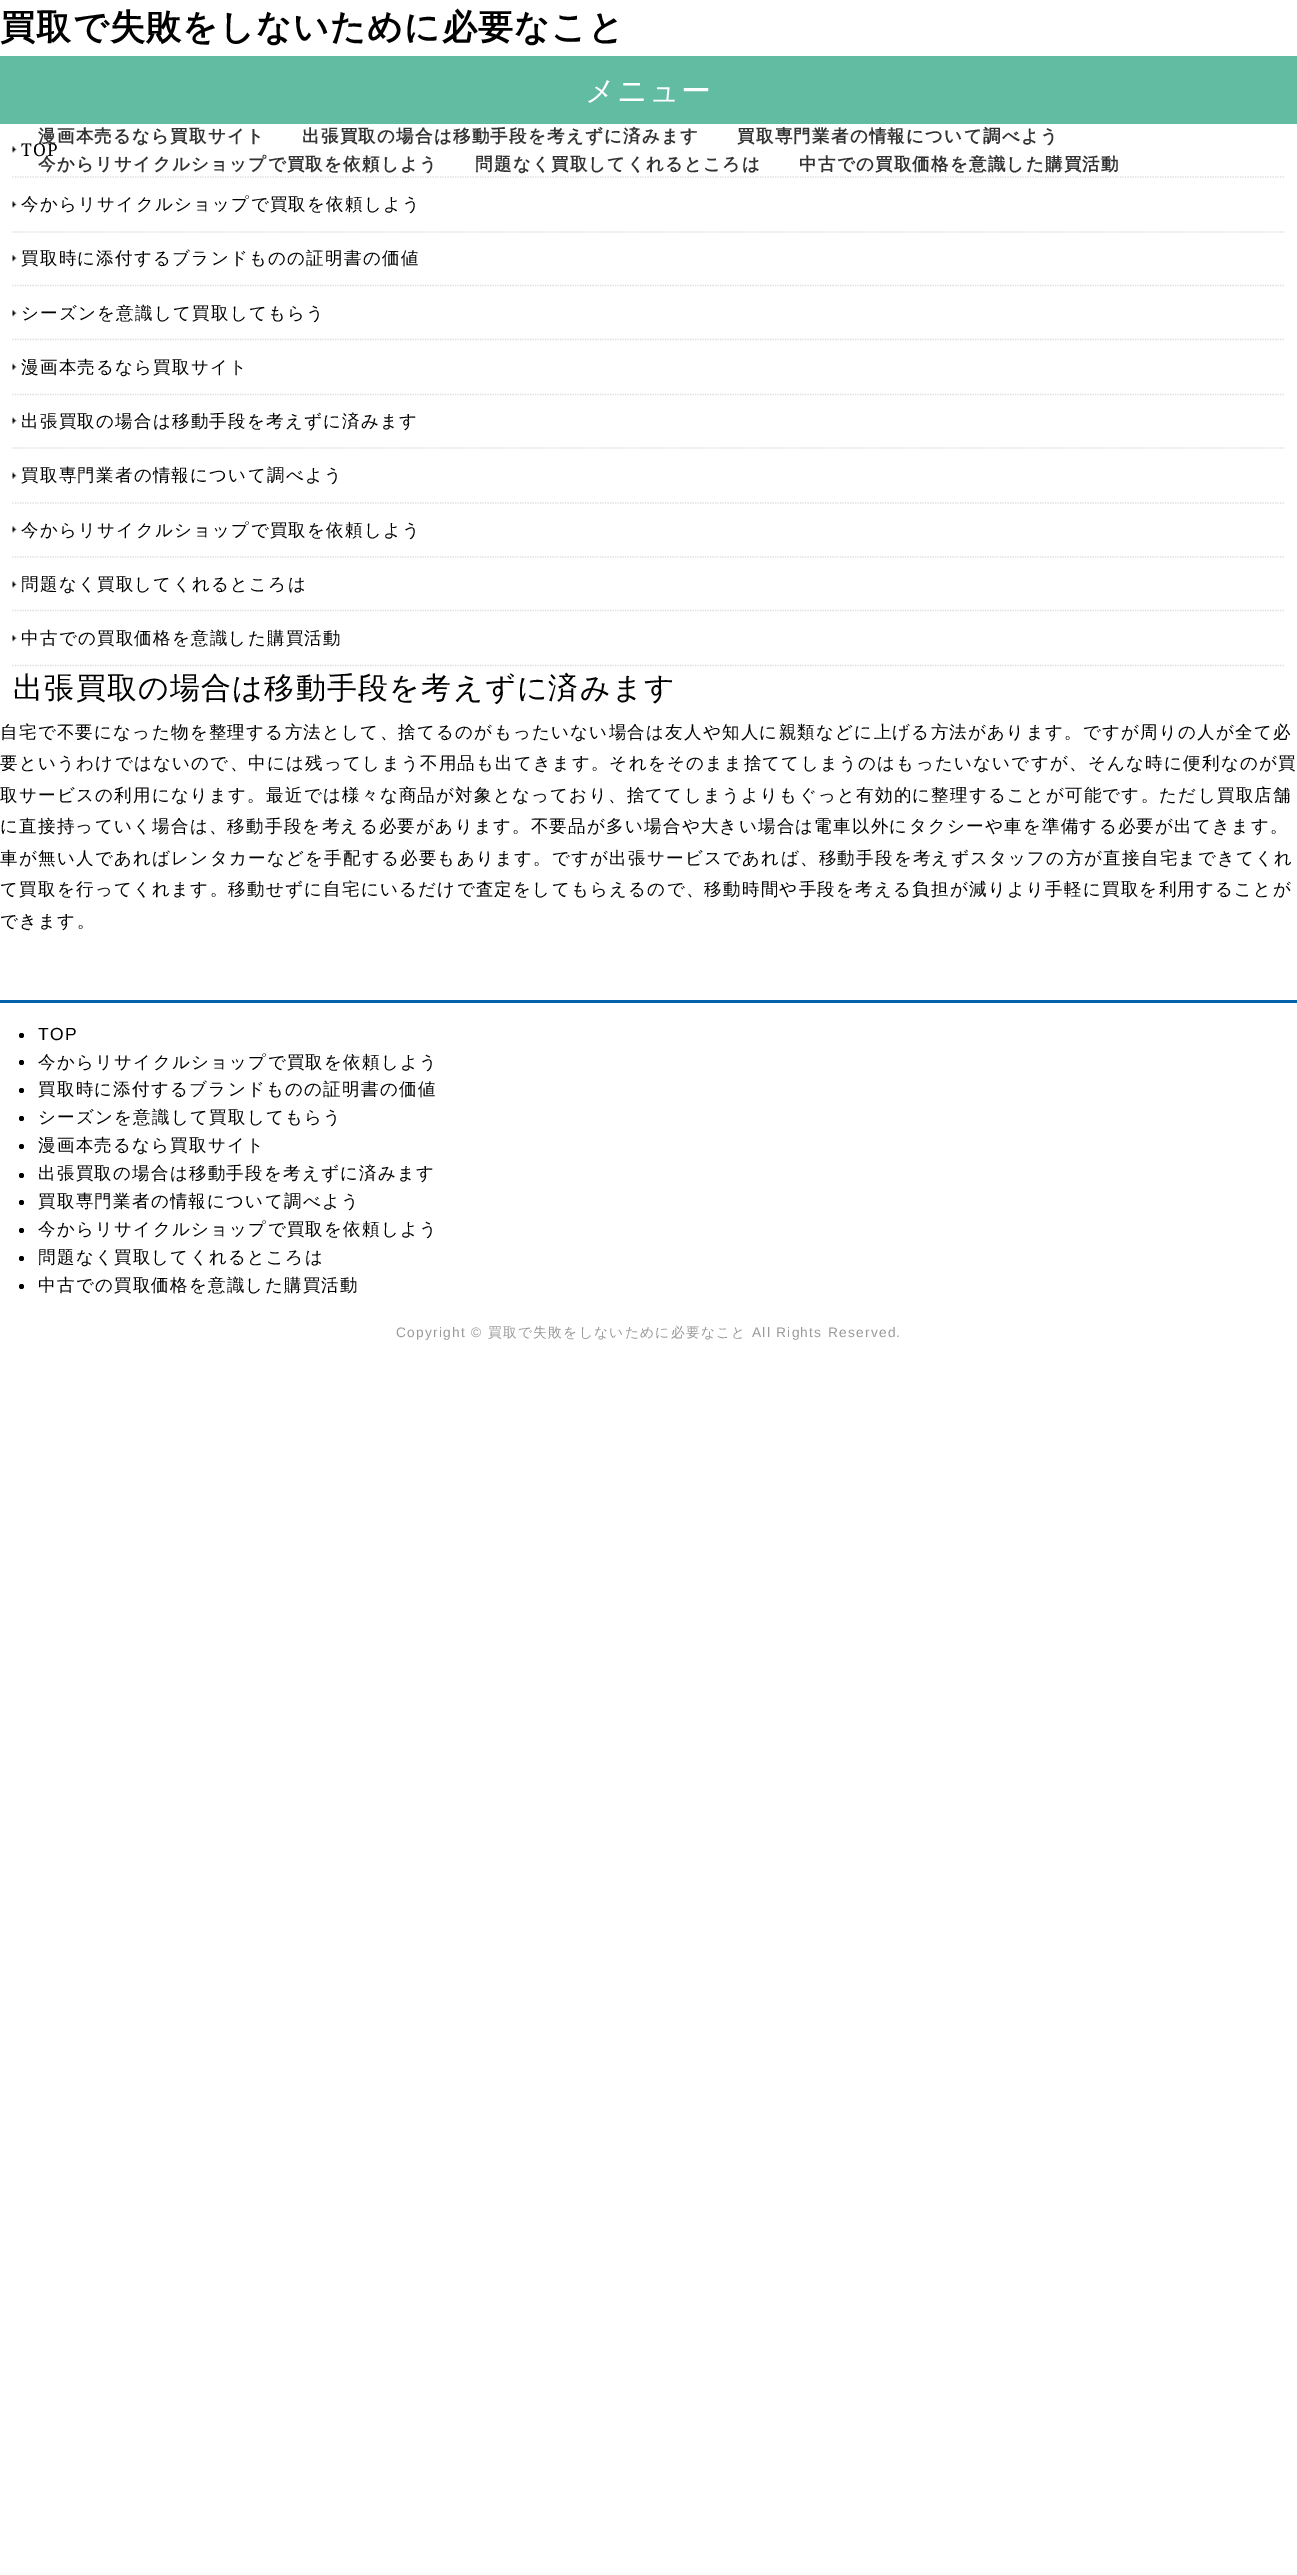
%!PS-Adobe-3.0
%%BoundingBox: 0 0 1297 2575
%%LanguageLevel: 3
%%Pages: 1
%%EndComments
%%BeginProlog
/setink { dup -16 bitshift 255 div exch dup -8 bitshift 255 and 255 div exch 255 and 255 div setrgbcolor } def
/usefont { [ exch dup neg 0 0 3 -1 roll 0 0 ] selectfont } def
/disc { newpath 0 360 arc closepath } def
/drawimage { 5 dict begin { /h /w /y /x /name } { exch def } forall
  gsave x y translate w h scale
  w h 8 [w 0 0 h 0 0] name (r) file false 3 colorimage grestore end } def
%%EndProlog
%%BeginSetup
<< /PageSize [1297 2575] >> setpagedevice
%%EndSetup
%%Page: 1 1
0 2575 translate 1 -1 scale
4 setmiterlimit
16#FFFFFF setink
0 0 1297 2575 rectfill
/WenQuanYiZenHei-Bold 35 usefont
16#000000 setink
0 39 moveto 1.25 0 (買取で失敗をしないために必要なこと) ashow
/WenQuanYiZenHei-Bold 17.5 usefont
16#333333 setink
38 142 moveto 1.25 0 (漫画本売るなら買取サイト) ashow
302 142 moveto 1.25 0 (出張買取の場合は移動手段を考えずに済みます) ashow
737 142 moveto 1.25 0 (買取専門業者の情報について調べよう) ashow
38 170 moveto 1.25 0 (今からリサイクルショップで買取を依頼しよう) ashow
475 170 moveto 1.25 0 (問題なく買取してくれるところは) ashow
799 170 moveto 1.25 0 (中古での買取価格を意識した購買活動) ashow
16#61BCA1 setink
0 56 1297 68 rectfill
/WenQuanYiZenHei-Medium 30 usefont
16#FFFFFF setink
585 101 moveto 1.25 0 (メニュー) ashow
(img1.raw) 12 146 5 7 drawimage
16#DDDDDD setink
1.2 setlinewidth
[1.25 1.25] 0 setdash
12.5 177 moveto 1285 177 lineto stroke
/NotoSerif-Regular 17.5 usefont
16#000000 setink
21 156 moveto 1.25 0 (TOP) ashow
(img1.raw) 12 201 5 7 drawimage
16#DDDDDD setink
12.5 232 moveto 1285 232 lineto stroke
/WenQuanYiZenHei-Medium 17.5 usefont
16#000000 setink
21 210 moveto 1.25 0 (今からリサイクルショップで買取を依頼しよう) ashow
(img2.raw) 12 255 5 7 drawimage
16#DDDDDD setink
12.5 285.5 moveto 1285 285.5 lineto stroke
16#000000 setink
21 264 moveto 1.25 0 (買取時に添付するブランドものの証明書の価値) ashow
(img2.raw) 12 310 5 7 drawimage
16#DDDDDD setink
12.5 339.5 moveto 1285 339.5 lineto stroke
16#000000 setink
21 319 moveto 1.25 0 (シーズンを意識して買取してもらう) ashow
(img3.raw) 12 363 5 7 drawimage
16#DDDDDD setink
12.5 394.5 moveto 1285 394.5 lineto stroke
16#000000 setink
21 373 moveto 1.25 0 (漫画本売るなら買取サイト) ashow
(img4.raw) 12 417 5 7 drawimage
16#DDDDDD setink
12.5 448 moveto 1285 448 lineto stroke
16#000000 setink
21 427 moveto 1.25 0 (出張買取の場合は移動手段を考えずに済みます) ashow
(img4.raw) 12 472 5 7 drawimage
16#DDDDDD setink
12.5 503 moveto 1285 503 lineto stroke
16#000000 setink
21 481 moveto 1.25 0 (買取専門業者の情報について調べよう) ashow
(img1.raw) 12 526 5 7 drawimage
16#DDDDDD setink
12.5 557 moveto 1285 557 lineto stroke
16#000000 setink
21 536 moveto 1.25 0 (今からリサイクルショップで買取を依頼しよう) ashow
(img1.raw) 12 581 5 7 drawimage
16#DDDDDD setink
12.5 610.5 moveto 1285 610.5 lineto stroke
16#000000 setink
21 590 moveto 1.25 0 (問題なく買取してくれるところは) ashow
(img2.raw) 12 635 5 7 drawimage
16#DDDDDD setink
12.5 665.5 moveto 1285 665.5 lineto stroke
16#000000 setink
21 644 moveto 1.25 0 (中古での買取価格を意識した購買活動) ashow
/WenQuanYiZenHei-Medium 30 usefont
13 698 moveto 1.25 0 (出張買取の場合は移動手段を考えずに済みます) ashow
/WenQuanYiZenHei-Medium 17.5 usefont
0 738 moveto 1.25 0 (自宅で不要になった物を整理する方法として、捨てるのがもったいない場合は友人や知人に親類などに上げる方法があります。ですが周りの人が全て必) ashow
0 769 moveto 1.25 0 (要というわけではないので、中には残ってしまう不用品も出てきます。それをそのまま捨ててしまうのはもったいないですが、そんな時に便利なのが買) ashow
0 801 moveto 1.25 0 (取サービスの利用になります。最近では様々な商品が対象となっており、捨ててしまうよりもぐっと有効的に整理することが可能です。ただし買取店舗) ashow
0 832 moveto 1.25 0 (に直接持っていく場合は、移動手段を考える必要があります。不要品が多い場合や大きい場合は電車以外にタクシーや車を準備する必要が出てきます。) ashow
0 864 moveto 1.25 0 (車が無い人であればレンタカーなどを手配する必要もあります。ですが出張サービスであれば、移動手段を考えずスタッフの方が直接自宅まできてくれ) ashow
0 895 moveto 1.25 0 (て買取を行ってくれます。移動せずに自宅にいるだけで査定をしてもらえるので、移動時間や手段を考える負担が減りより手軽に買取を利用することが) ashow
0 927 moveto 1.25 0 (できます。) ashow
16#0063AB setink
0 1000 1297 3 rectfill
16#000000 setink
21.5 1035.5 2.5 disc fill
/LiberationSans-Regular 17.5 usefont
38 1040 moveto 1.25 0 (TOP) ashow
21.5 1062.5 2.5 disc fill
/WenQuanYiZenHei-Medium 17.5 usefont
38 1068 moveto 1.25 0 (今からリサイクルショップで買取を依頼しよう) ashow
21.5 1090.5 2.5 disc fill
38 1095 moveto 1.25 0 (買取時に添付するブランドものの証明書の価値) ashow
21.5 1118.5 2.5 disc fill
38 1123 moveto 1.25 0 (シーズンを意識して買取してもらう) ashow
21.5 1146.5 2.5 disc fill
38 1151 moveto 1.25 0 (漫画本売るなら買取サイト) ashow
21.5 1175.5 2.5 disc fill
38 1179 moveto 1.25 0 (出張買取の場合は移動手段を考えずに済みます) ashow
21.5 1202.5 2.5 disc fill
38 1207 moveto 1.25 0 (買取専門業者の情報について調べよう) ashow
21.5 1230.5 2.5 disc fill
38 1235 moveto 1.25 0 (今からリサイクルショップで買取を依頼しよう) ashow
21.5 1258.5 2.5 disc fill
38 1263 moveto 1.25 0 (問題なく買取してくれるところは) ashow
21.5 1286.5 2.5 disc fill
38 1291 moveto 1.25 0 (中古での買取価格を意識した購買活動) ashow
/LiberationSans-Regular 13.75 usefont
16#999999 setink
396 1337 moveto 1.25 0 (Copyright ©) ashow
/WenQuanYiZenHei-Medium 13.75 usefont
488 1337 moveto 1.25 0 (買取で失敗をしないために必要なこと) ashow
/LiberationSans-Regular 13.75 usefont
752 1337 moveto 1.25 0 (All Rights Reserved.) ashow
showpage
%%EOF
